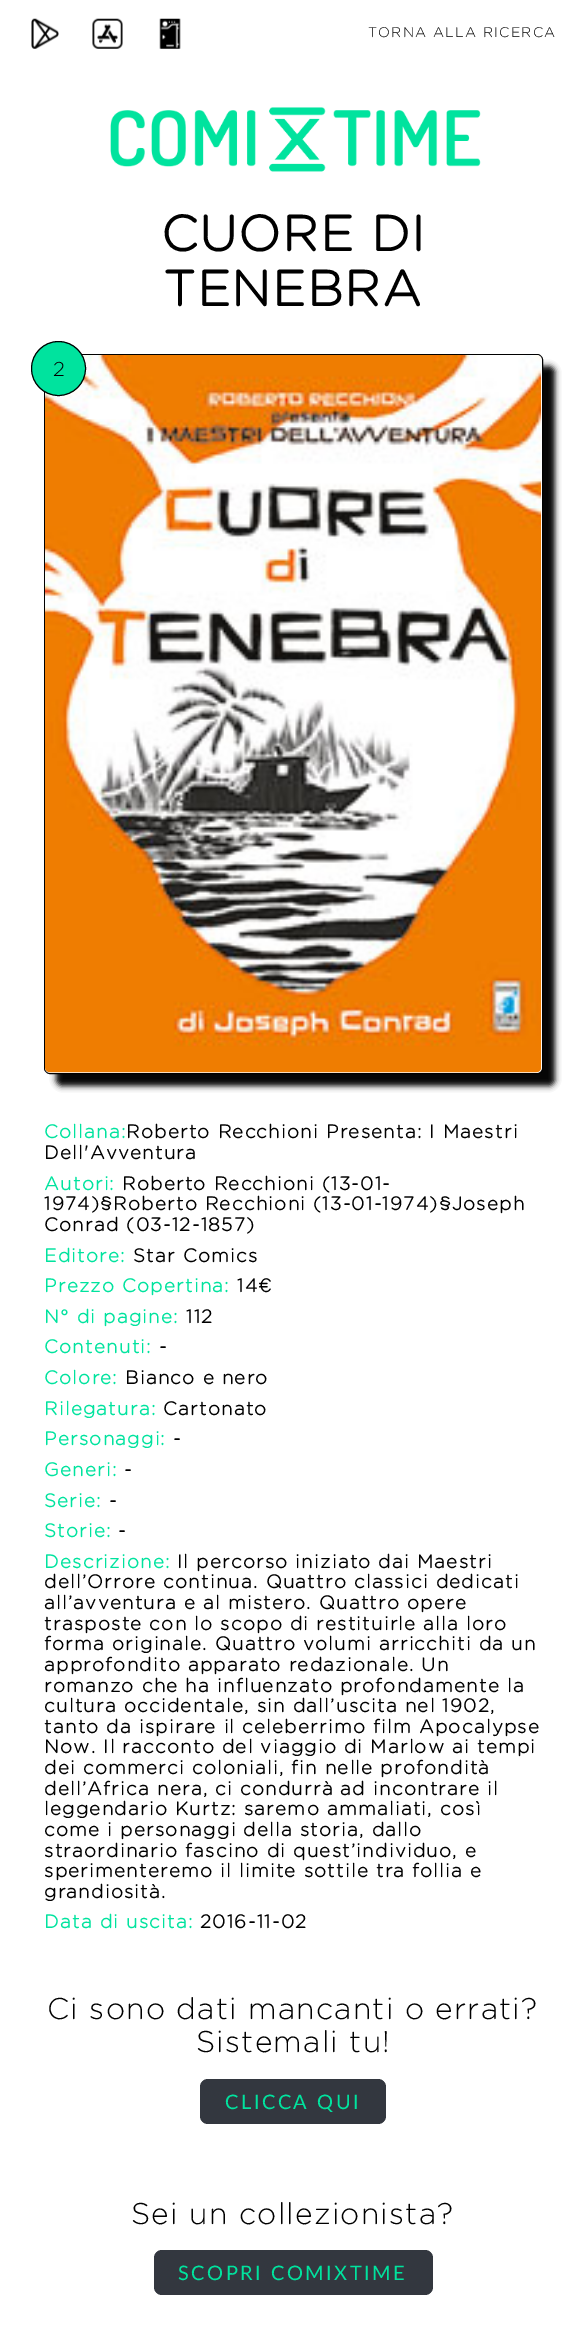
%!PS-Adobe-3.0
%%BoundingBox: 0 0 586 2344
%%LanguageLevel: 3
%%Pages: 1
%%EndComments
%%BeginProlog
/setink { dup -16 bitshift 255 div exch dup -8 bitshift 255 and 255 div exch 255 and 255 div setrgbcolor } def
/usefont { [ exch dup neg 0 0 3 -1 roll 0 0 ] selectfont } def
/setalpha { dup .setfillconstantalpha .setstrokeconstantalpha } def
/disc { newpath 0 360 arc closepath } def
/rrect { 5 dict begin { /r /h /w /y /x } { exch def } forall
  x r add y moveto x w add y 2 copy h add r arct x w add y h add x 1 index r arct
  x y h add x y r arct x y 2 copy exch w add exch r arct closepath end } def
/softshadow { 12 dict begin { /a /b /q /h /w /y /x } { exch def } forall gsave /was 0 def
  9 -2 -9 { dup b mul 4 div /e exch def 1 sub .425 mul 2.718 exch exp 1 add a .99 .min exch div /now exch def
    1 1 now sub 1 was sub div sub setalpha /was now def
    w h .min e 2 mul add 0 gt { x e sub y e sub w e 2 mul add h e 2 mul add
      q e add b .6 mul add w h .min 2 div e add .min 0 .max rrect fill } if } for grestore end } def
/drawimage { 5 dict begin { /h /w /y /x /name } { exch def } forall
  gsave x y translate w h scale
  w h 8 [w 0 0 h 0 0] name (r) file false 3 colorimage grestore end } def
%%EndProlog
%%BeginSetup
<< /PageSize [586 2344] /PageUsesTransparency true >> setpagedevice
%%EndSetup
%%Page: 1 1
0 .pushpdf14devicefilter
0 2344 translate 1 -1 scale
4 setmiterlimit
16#FFFFFF setink
0 0 586 2344 rectfill
(img1.raw) 31 18 28 31 drawimage
(img2.raw) 92 18 31 31 drawimage
(img3.raw) 159 18 22 31 drawimage
/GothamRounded-Light 14 usefont
16#000000 setink
368 37 moveto 1.25 0 (TORNA ALLA RICERCA) ashow
(img4.raw) 110 107 371 65 drawimage
/GothamRounded-Bold 50 usefont
161 251 moveto 1.25 0 (CUORE DI) ashow
163 306 moveto 1.25 0 (TENEBRA) ashow
56 366 499 720 6 3 1 softshadow
44.5 354.5 498 719 5.5 rrect stroke
(img5.raw) 45 355 497 718 drawimage
16#00E39E setink
58.5 368.5 27 disc gsave fill grestore
16#000000 setink
stroke
/GothamRounded-Light 20 usefont
53 376 moveto (2) show
/GothamRounded-Bold 18.75 usefont
16#00E39E setink
44 1138 moveto 1.25 0 (Collana:) ashow
16#000000 setink
126 1138 moveto 1.25 0 (Roberto Recchioni Presenta: I Maestri) ashow
44 1159 moveto 1.25 0 (Dell'Avventura) ashow
16#00E39E setink
44 1190 moveto 1.25 0 (Autori:) ashow
16#000000 setink
122 1190 moveto 1.25 0 (Roberto Recchioni \(13-01-) ashow
44 1210 moveto 1.25 0 (1974\)§Roberto Recchioni \(13-01-1974\)§Joseph) ashow
44 1231 moveto 1.25 0 (Conrad \(03-12-1857\)) ashow
16#00E39E setink
44 1262 moveto 1.25 0 (Editore:) ashow
16#000000 setink
133 1262 moveto 1.25 0 (Star Comics) ashow
16#00E39E setink
44 1292 moveto 1.25 0 (Prezzo Copertina:) ashow
16#000000 setink
237 1292 moveto 1.25 0 (14€) ashow
16#00E39E setink
44 1323 moveto 1.25 0 (N° di pagine:) ashow
16#000000 setink
186 1323 moveto 1.25 0 (112) ashow
16#00E39E setink
44 1353 moveto 1.25 0 (Contenuti:) ashow
16#000000 setink
159 1353 moveto 1.25 0 (-) ashow
16#00E39E setink
44 1384 moveto 1.25 0 (Colore:) ashow
16#000000 setink
125 1384 moveto 1.25 0 (Bianco e nero) ashow
16#00E39E setink
44 1415 moveto 1.25 0 (Rilegatura:) ashow
16#000000 setink
163 1415 moveto 1.25 0 (Cartonato) ashow
16#00E39E setink
44 1445 moveto 1.25 0 (Personaggi:) ashow
16#000000 setink
173 1445 moveto 1.25 0 (-) ashow
16#00E39E setink
44 1476 moveto 1.25 0 (Generi:) ashow
16#000000 setink
124 1476 moveto 1.25 0 (-) ashow
16#00E39E setink
44 1507 moveto 1.25 0 (Serie:) ashow
16#000000 setink
109 1507 moveto 1.25 0 (-) ashow
16#00E39E setink
44 1537 moveto 1.25 0 (Storie:) ashow
16#000000 setink
118 1537 moveto 1.25 0 (-) ashow
16#00E39E setink
44 1568 moveto 1.25 0 (Descrizione:) ashow
16#000000 setink
177 1568 moveto 1.25 0 (Il percorso iniziato dai Maestri) ashow
44 1588 moveto 1.25 0 (dell’Orrore continua. Quattro classici dedicati) ashow
44 1609 moveto 1.25 0 (all’avventura e al mistero. Quattro opere) ashow
44 1630 moveto 1.25 0 (trasposte con lo scopo di restituirle alla loro) ashow
44 1650 moveto 1.25 0 (forma originale. Quattro volumi arricchiti da un) ashow
44 1671 moveto 1.25 0 (approfondito apparato redazionale. Un) ashow
44 1692 moveto 1.25 0 (romanzo che ha influenzato profondamente la) ashow
44 1712 moveto 1.25 0 (cultura occidentale, sin dall’uscita nel 1902,) ashow
44 1733 moveto 1.25 0 (tanto da ispirare il celeberrimo film Apocalypse) ashow
44 1753 moveto 1.25 0 (Now. Il racconto del viaggio di Marlow ai tempi) ashow
44 1774 moveto 1.25 0 (dei commerci coloniali, fin nelle profondità) ashow
44 1795 moveto 1.25 0 (dell’Africa nera, ci condurrà ad incontrare il) ashow
44 1815 moveto 1.25 0 (leggendario Kurtz: saremo ammaliati, così) ashow
44 1836 moveto 1.25 0 (come i personaggi della storia, dallo) ashow
44 1857 moveto 1.25 0 (straordinario fascino di quest’individuo, e) ashow
44 1877 moveto 1.25 0 (sperimenteremo il limite sottile tra follia e) ashow
44 1898 moveto 1.25 0 (grandiosità.) ashow
16#00E39E setink
44 1928 moveto 1.25 0 (Data di uscita:) ashow
16#000000 setink
200 1928 moveto 1.25 0 (2016-11-02) ashow
/GothamRounded-Light 30 usefont
47 2019 moveto 1.25 0 (Ci sono dati mancanti o errati?) ashow
196 2052 moveto 1.25 0 (Sistemali tu!) ashow
16#33373F setink
200 2079 186 45 8 rrect fill
/Lato-Regular 20 usefont
16#00E39E setink
225 2109 moveto 2.5 0 (CLICCA QUI) ashow
/GothamRounded-Light 30 usefont
16#000000 setink
131 2224 moveto 1.25 0 (Sei un collezionista?) ashow
16#33373F setink
154 2250 279 45 8 rrect fill
/Lato-Regular 20 usefont
16#00E39E setink
178 2280 moveto 2.5 0 (SCOPRI COMIXTIME) ashow
.poppdf14devicefilter showpage
%%EOF
